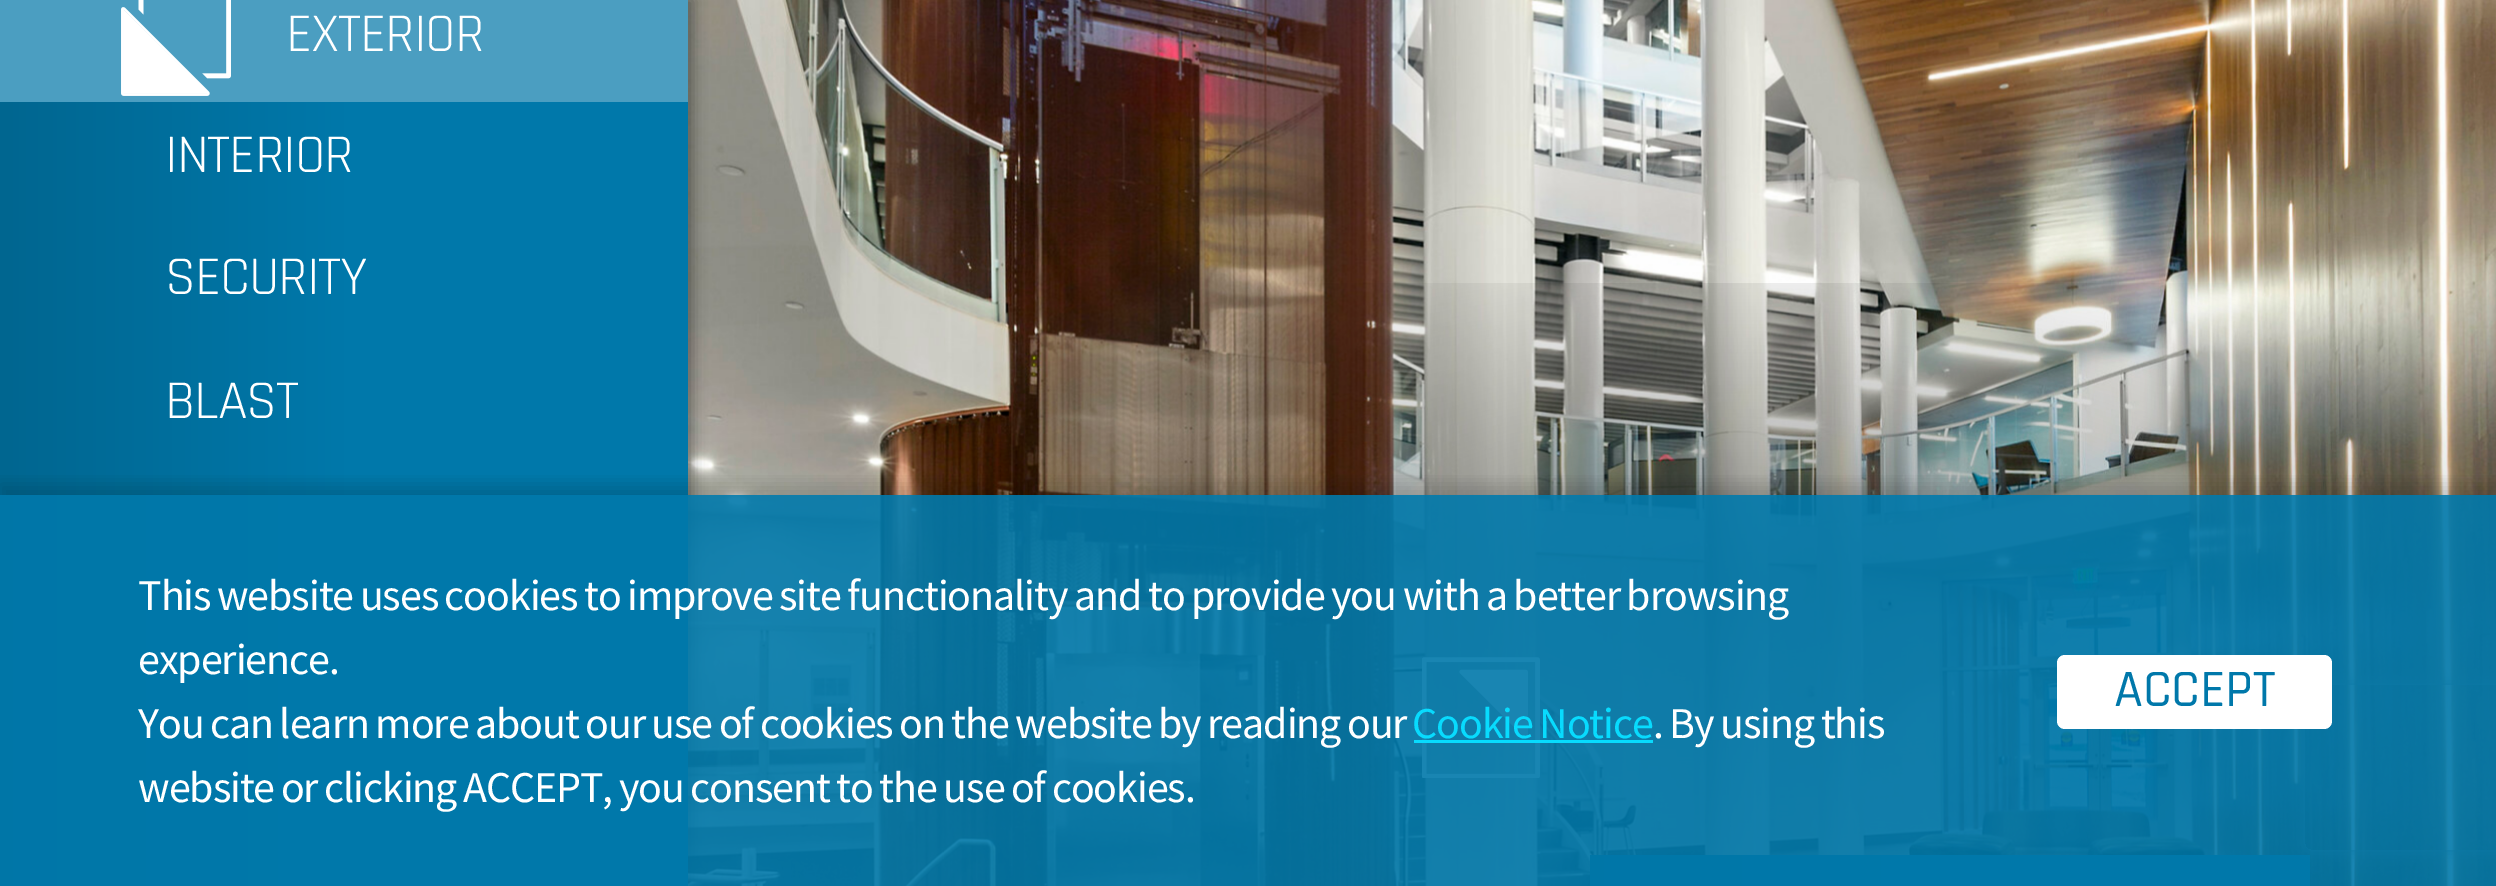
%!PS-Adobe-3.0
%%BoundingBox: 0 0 2496 886
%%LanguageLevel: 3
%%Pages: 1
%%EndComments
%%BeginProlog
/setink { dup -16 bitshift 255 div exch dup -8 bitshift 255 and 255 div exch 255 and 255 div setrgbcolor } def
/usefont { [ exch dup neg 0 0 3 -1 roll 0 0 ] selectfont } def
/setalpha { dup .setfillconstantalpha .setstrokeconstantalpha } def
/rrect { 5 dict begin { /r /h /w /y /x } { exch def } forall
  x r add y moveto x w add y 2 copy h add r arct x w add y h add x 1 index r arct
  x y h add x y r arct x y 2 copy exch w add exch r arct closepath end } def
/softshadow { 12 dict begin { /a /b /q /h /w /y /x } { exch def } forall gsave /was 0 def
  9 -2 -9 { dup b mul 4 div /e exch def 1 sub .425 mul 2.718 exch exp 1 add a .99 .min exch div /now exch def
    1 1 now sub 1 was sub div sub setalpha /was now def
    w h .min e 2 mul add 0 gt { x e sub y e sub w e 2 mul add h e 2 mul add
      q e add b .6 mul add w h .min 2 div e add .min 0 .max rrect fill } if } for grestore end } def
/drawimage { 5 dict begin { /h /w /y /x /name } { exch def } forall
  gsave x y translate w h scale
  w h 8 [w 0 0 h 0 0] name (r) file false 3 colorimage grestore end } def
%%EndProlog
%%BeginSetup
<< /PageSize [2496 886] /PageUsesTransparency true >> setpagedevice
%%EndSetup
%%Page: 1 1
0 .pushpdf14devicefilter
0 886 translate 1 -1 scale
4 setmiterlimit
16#FFFFFF setink
0 0 2496 886 rectfill
(img2.raw) 688 0 1808 886 drawimage
16#000000 setink
6 0 687 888 0 7 0.35 softshadow
gsave 0 102 moveto 688 102 lineto 688 886 lineto 0 886 lineto closepath clip newpath
<< /ShadingType 2 /ColorSpace /DeviceRGB /Coords [0 444 688 444] /Extend [true true] /Function << /FunctionType 3 /Domain [0 1] /Functions [<< /FunctionType 2 /Domain [0 1] /C0 [0 0.4 0.565] /C1 [0 0.471 0.667] /N 1 >> << /FunctionType 2 /Domain [0 1] /C0 [0 0.471 0.667] /C1 [0 0.471 0.667] /N 1 >>] /Bounds [0.5] /Encode [0 1 0 1] >> >> shfill grestore
16#4B9EC1 setink
0 0 688 102 rectfill
(img1.raw) 121 0 110 96 drawimage
/Rajdhani-Regular 55 usefont
16#FFFFFF setink
286 51 moveto -1.07 0 (EXTERIOR) ashow
165 172 moveto -1.07 0 (INTERIOR) ashow
165 294 moveto -1.07 0 (SECURITY) ashow
165 418 moveto -1.07 0 (BLAST) ashow
(img3.raw) 1422 657 118 121 drawimage
gsave 1593 855 moveto 2307 855 lineto 2308.5 855 2310 856.5 2310 858 curveto 2310 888 lineto 1590 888 lineto 1590 858 lineto 1590 856.5 1591.5 855 1593 855 curveto closepath clip newpath
<< /ShadingType 2 /ColorSpace /DeviceRGB /Coords [1590 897 2310 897] /Extend [true true] /Function << /FunctionType 3 /Domain [0 1] /Functions [<< /FunctionType 2 /Domain [0 1] /C0 [0 0.4 0.565] /C1 [0 0.471 0.667] /N 1 >> << /FunctionType 2 /Domain [0 1] /C0 [0 0.471 0.667] /C1 [0 0.471 0.667] /N 1 >>] /Bounds [0.5] /Encode [0 1 0 1] >> >> shfill grestore
gsave
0 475 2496 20 rectclip
16#000000 setink
0 484 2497 393 0 8 0.15 softshadow
grestore
gsave
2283 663 moveto 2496 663 lineto 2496 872 lineto 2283 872 lineto closepath 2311 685 moveto 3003 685 lineto 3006.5 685 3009 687.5 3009 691 curveto 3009 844 lineto 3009 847.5 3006.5 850 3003 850 curveto 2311 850 lineto 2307.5 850 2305 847.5 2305 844 curveto 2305 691 lineto 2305 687.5 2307.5 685 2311 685 curveto closepath eoclip newpath
16#808080 setink
2305 685 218 165 6 7 1 softshadow
grestore
0.9 setalpha
16#0078AA setink
0 495 2496 391 rectfill
/SourceSansPro-Regular 44 usefont
1 setalpha
16#FFFFFF setink
138 610 moveto -1.3 0 32 -1.07 0 (This website uses cookies to improve site functionality and to provide you with a better browsing) awidthshow
138 674 moveto -1.07 0 (experience.) ashow
138 738 moveto -1.3 0 32 -1.07 0 (You can learn more about our use of cookies on the website by reading our) awidthshow
16#08DBFE setink
1412 738 moveto -1.3 0 32 -1.07 0 (Cookie Notice) awidthshow
1414 740 239 3 rectfill
16#FFFFFF setink
1653 738 moveto -1.3 0 32 -1.07 0 (. By using this) awidthshow
138 802 moveto -1.3 0 32 -1.07 0 (website or clicking ACCEPT, you consent to the use of cookies.) awidthshow
2057 655 275 74 8 rrect fill
/Rajdhani-Medium 53 usefont
16#0078AA setink
2114 706 moveto (ACCEPT) show
.poppdf14devicefilter showpage
%%EOF
